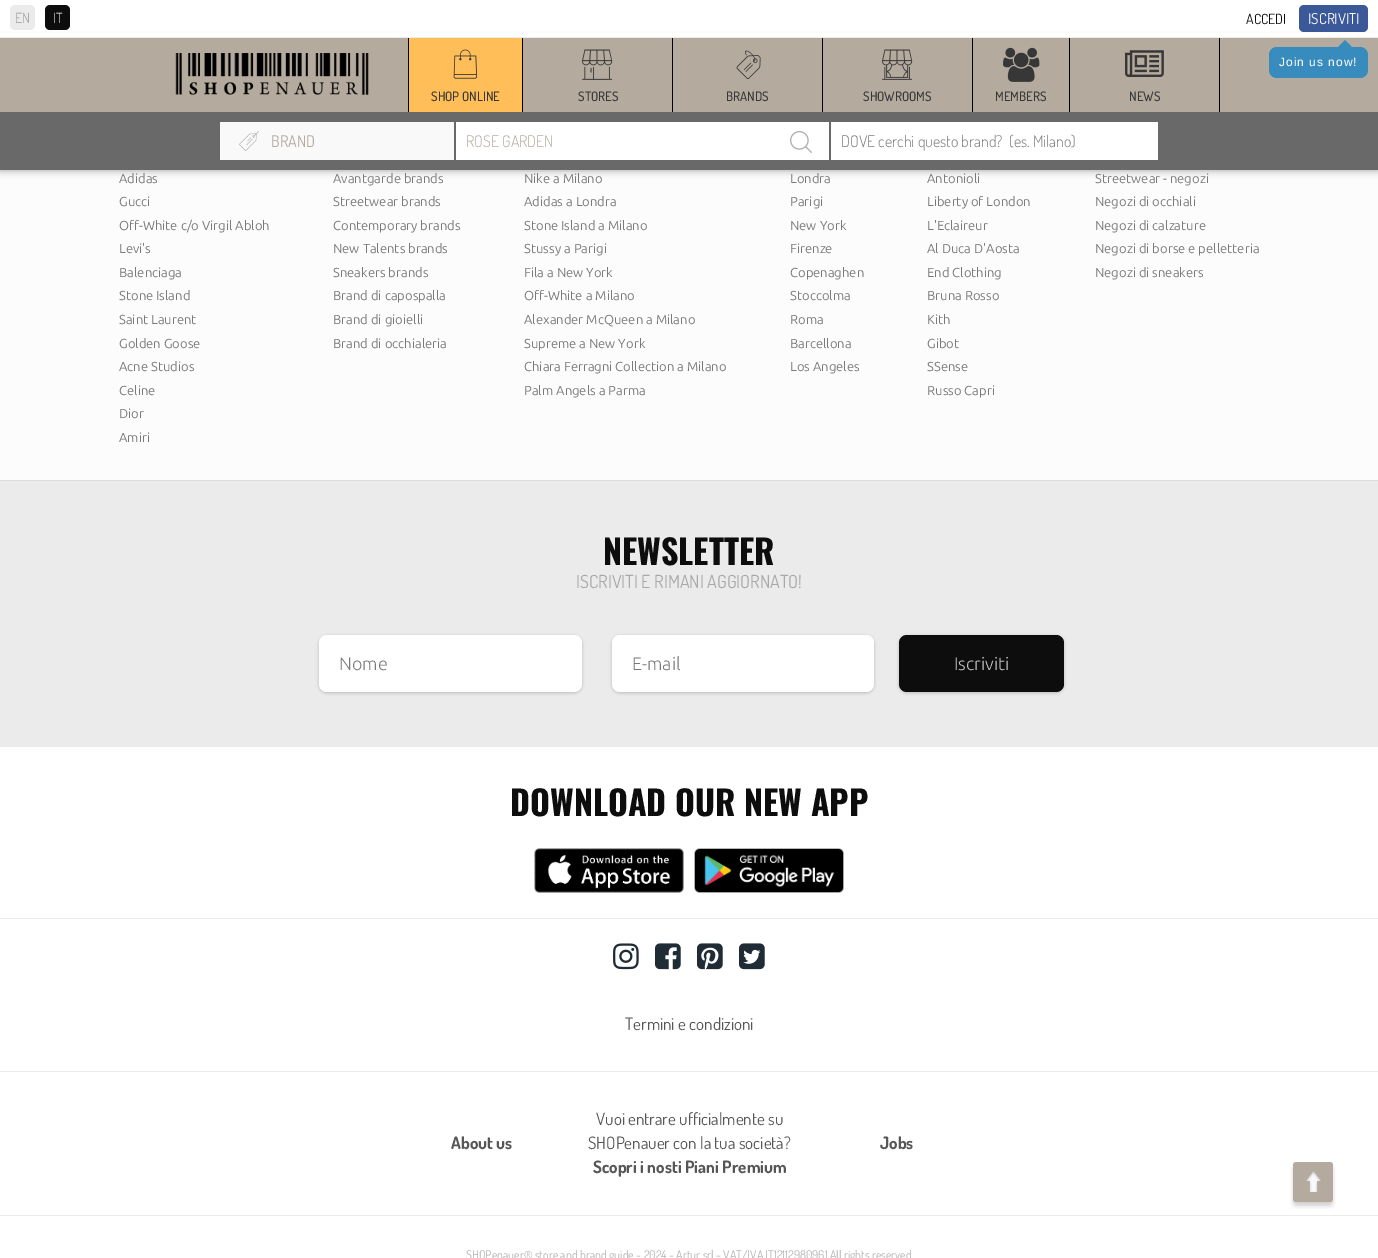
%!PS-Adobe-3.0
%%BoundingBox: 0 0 1378 1258
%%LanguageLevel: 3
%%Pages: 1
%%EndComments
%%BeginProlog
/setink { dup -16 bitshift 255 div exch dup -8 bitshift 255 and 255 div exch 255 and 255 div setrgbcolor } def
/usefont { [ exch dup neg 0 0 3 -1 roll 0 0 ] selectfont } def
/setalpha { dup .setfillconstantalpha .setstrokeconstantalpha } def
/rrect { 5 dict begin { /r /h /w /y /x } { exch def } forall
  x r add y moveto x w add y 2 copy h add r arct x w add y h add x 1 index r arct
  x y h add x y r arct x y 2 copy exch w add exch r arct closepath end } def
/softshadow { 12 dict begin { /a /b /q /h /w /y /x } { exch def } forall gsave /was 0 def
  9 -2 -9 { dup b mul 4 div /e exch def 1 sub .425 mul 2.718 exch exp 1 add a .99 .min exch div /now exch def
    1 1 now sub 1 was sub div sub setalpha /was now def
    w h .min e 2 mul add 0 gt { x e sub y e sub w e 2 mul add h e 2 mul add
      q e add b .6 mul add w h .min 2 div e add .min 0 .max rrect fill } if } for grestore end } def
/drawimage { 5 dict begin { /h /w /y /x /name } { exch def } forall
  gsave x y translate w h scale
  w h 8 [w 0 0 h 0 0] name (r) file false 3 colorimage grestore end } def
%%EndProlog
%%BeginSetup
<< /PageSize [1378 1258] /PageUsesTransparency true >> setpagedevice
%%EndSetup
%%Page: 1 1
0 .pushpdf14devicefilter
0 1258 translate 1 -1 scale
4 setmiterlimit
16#FFFFFF setink
0 0 1378 1258 rectfill
16#FCFCFC setink
0 170 1378 310 rectfill
16#000000 setink
0 39 1378 132 0 3.5 0.32 softshadow
16#FFFFFF setink
0 33 1378 4 rectfill
16#EBEBEB setink
0 37 1378 1 rectfill
10 5 25 25 5 rrect fill
/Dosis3-ExtraLight 14 usefont
16#929292 setink
15 23 moveto (EN) show
16#0D0D0D setink
45 5 25 25 5 rrect fill
16#FFFFFF setink
53 23 moveto (IT) show
/Dosis-ExtraLight 14 usefont
16#0D0D0D setink
1246 24 moveto (ACCEDI) show
16#3B5998 setink
1299 5 69 27 5 rrect fill
/Dosis-ExtraLight 15 usefont
16#FFFFFF setink
1308 24 moveto (ISCRIVITI) show
16#B4AA9E setink
0 38 1378 74 rectfill
16#388BBD setink
1269 47 99 31 8 rrect fill
1360 55 moveto 1330 55 lineto 1345 40 lineto closepath fill
/LiberationSans-Regular 12 usefont
16#FFFFFF setink
1279 66 moveto 1 0 (Join us now!) ashow
(img1.raw) 175 53 194 42 drawimage
[
    [409 38 113 74 16#FFBE57]
    [522 38 1 74 16#000000]
    [408 38 1 74 16#000000]
] { aload pop setink rectfill } forall
(img2.raw) 453 49 25 30 drawimage
/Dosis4-ExtraLight 13 usefont
16#373737 setink
431 101 moveto (SHOP ONLINE) show
16#000000 setink
672 38 1 74 rectfill
(img3.raw) 582 49 31 31 drawimage
16#373737 setink
578 101 moveto (STORES) show
16#000000 setink
822 38 1 74 rectfill
(img4.raw) 736 50 25 29 drawimage
16#373737 setink
726 101 moveto (BRANDS) show
16#000000 setink
972 38 1 74 rectfill
(img5.raw) 882 49 31 31 drawimage
16#373737 setink
863 101 moveto (SHOWROOMS) show
16#000000 setink
1069 38 1 74 rectfill
(img6.raw) 1003 47 37 35 drawimage
16#373737 setink
995 101 moveto (MEMBERS) show
16#000000 setink
1219 38 1 74 rectfill
(img7.raw) 1125 50 39 27 drawimage
16#373737 setink
1129 101 moveto (NEWS) show
16#696969 setink
0 112 1378 58 rectfill
16#F9F9F9 setink
220 122 234 38 rectfill
(img8.raw) 239 131 20 20 drawimage
/Dosis-ExtraLight 16 usefont
16#B4AA9E setink
271 147 moveto (BRAND) show
16#FFFFFF setink
456 122 373 38 rectfill
/Dosis3-ExtraLight 16 usefont
16#B4AA9E setink
466 147 moveto (ROSE GARDEN) show
(img9.raw) 790 131 22 22 drawimage
16#FFFFFF setink
831 122 327 38 rectfill
16#797979 setink
841 147 moveto (DOVE cerchi questo brand?  \(es. Milano\)) show
16#DCDCDC setink
0 480 1378 1 rectfill
/Ubuntu-Regular 13 usefont
16#797979 setink
[
    [(Adidas) 119 183]
    [(Gucci) 119 206]
    [(Off-White c/o Virgil Abloh) 119 230]
    [(Levi's) 119 253]
    [(Balenciaga) 119 277]
    [(Stone Island) 119 300]
    [(Saint Laurent) 119 324]
    [(Golden Goose) 119 348]
    [(Acne Studios) 119 371]
    [(Celine) 119 395]
    [(Dior) 119 418]
    [(Amiri) 119 442]
    [(Avantgarde brands) 333 183]
    [(Streetwear brands) 333 206]
    [(Contemporary brands) 333 230]
    [(New Talents brands) 333 253]
    [(Sneakers brands) 333 277]
    [(Brand di capospalla) 333 300]
    [(Brand di gioielli) 333 324]
    [(Brand di occhialeria) 333 348]
    [(Nike a Milano) 524 183]
    [(Adidas a Londra) 524 206]
    [(Stone Island a Milano) 524 230]
    [(Stussy a Parigi) 524 253]
    [(Fila a New York) 524 277]
    [(Off-White a Milano) 524 300]
    [(Alexander McQueen a Milano) 524 324]
    [(Supreme a New York) 524 348]
    [(Chiara Ferragni Collection a Milano) 524 371]
    [(Palm Angels a Parma) 524 395]
    [(Londra) 790 183]
    [(Parigi) 790 206]
    [(New York) 790 230]
    [(Firenze) 790 253]
    [(Copenaghen) 790 277]
    [(Stoccolma) 790 300]
    [(Roma) 790 324]
    [(Barcellona) 790 348]
    [(Los Angeles) 790 371]
    [(Antonioli) 927 183]
    [(Liberty of London) 927 206]
    [(L'Eclaireur) 927 230]
    [(Al Duca D'Aosta) 927 253]
    [(End Clothing) 927 277]
    [(Bruna Rosso) 927 300]
    [(Kith) 927 324]
    [(Gibot) 927 348]
    [(SSense) 927 371]
    [(Russo Capri) 927 395]
    [(Streetwear - negozi) 1095 183]
    [(Negozi di occhiali) 1095 206]
    [(Negozi di calzature) 1095 230]
    [(Negozi di borse e pelletteria) 1095 253]
    [(Negozi di sneakers) 1095 277]
] { aload pop moveto show } forall
16#EBEBEB setink
0 481 1378 266 rectfill
/Oswald-Bold 34 usefont
16#0D0D0D setink
603 565 moveto (NEWSLETTER) show
/Dosis-ExtraLight 18 usefont
16#A8A8A8 setink
576 588 moveto (ISCRIVITI E RIMANI AGGIORNATO!) show
16#000000 setink
319 636 263 57 8 1.5 0.21 softshadow
16#FFFFFF setink
319 635 263 57 8 rrect fill
/Ubuntu-Light 18 usefont
16#797979 setink
339 670 moveto (Nome) show
16#000000 setink
612 636 262 57 8 1.5 0.21 softshadow
16#FFFFFF setink
612 635 262 57 8 rrect fill
16#797979 setink
632 670 moveto (E-mail) show
16#000000 setink
899 636 165 57 8 1.5 0.21 softshadow
16#0D0D0D setink
899 635 165 57 8 rrect fill
16#C3C3C3 setink
954 670 moveto (Iscriviti) show
16#EBEBEB setink
0 918 1378 1 rectfill
/Oswald-Bold 34 usefont
16#0D0D0D setink
510 816 moveto (DOWNLOAD OUR NEW APP) show
(img10.raw) 534 848 150 45 drawimage
(img11.raw) 694 848 150 45 drawimage
(img12.raw) 613 943 26 27 drawimage
(img13.raw) 655 943 26 27 drawimage
(img14.raw) 697 943 26 27 drawimage
(img15.raw) 739 943 26 27 drawimage
16#EBEBEB setink
0 1071 1378 1 rectfill
/Dosis-ExtraLight 17 usefont
16#565656 setink
625 1030 moveto (Termini e condizioni) show
16#EBEBEB setink
0 1215 1378 1 rectfill
/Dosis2-ExtraLight 17 usefont
16#565656 setink
451 1149 moveto (About us) show
/Dosis-ExtraLight 17 usefont
596 1125 moveto (Vuoi entrare ufficialmente su) show
588 1149 moveto (SHOPenauer con la tua società?) show
/Dosis2-ExtraLight 17 usefont
593 1173 moveto (Scopri i nosti Piani Premium) show
880 1149 moveto (Jobs) show
/Dosis-ExtraLight 12 usefont
16#B2B2B2 setink
466 1259 moveto (SHOPenauer® store and brand guide - 2024 - Artur srl - VAT/IVA IT12112980961 All rights reserved) show
(img16.raw) 1290 1162 46 47 drawimage
.poppdf14devicefilter showpage
%%EOF
